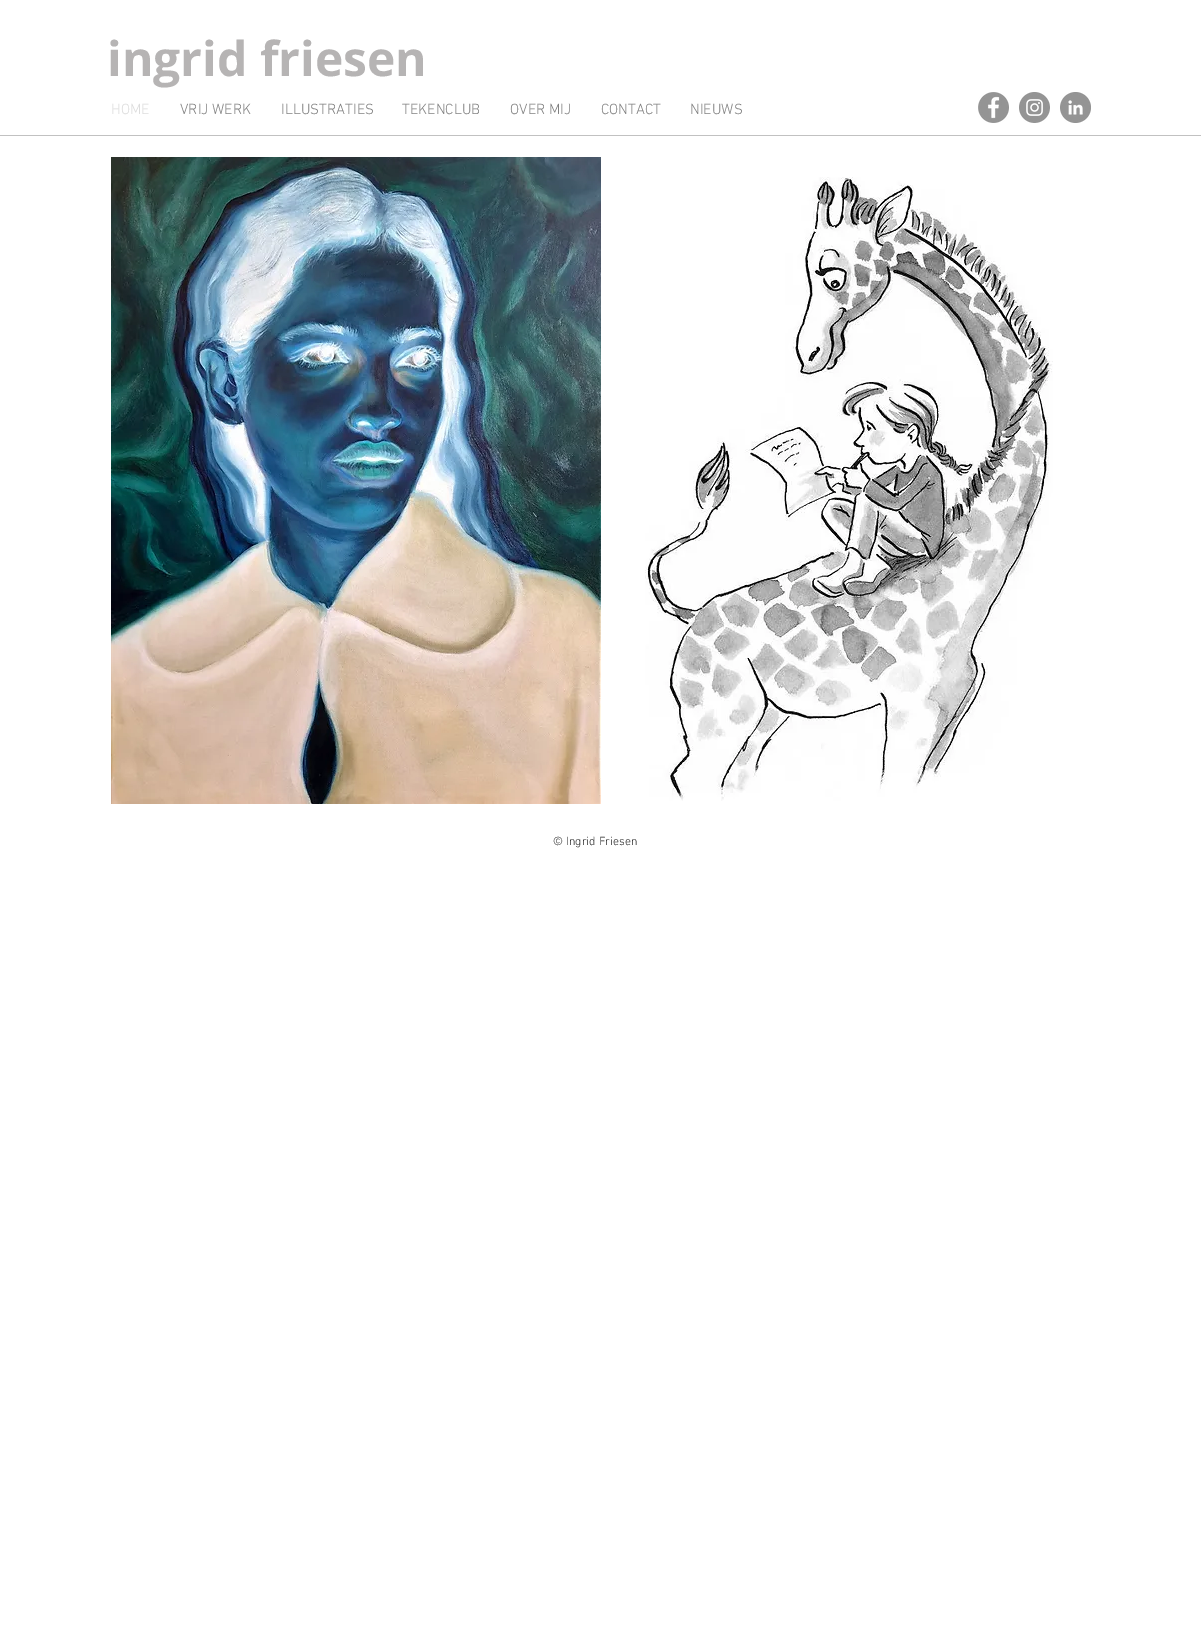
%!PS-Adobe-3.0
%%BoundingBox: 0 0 1201 1639
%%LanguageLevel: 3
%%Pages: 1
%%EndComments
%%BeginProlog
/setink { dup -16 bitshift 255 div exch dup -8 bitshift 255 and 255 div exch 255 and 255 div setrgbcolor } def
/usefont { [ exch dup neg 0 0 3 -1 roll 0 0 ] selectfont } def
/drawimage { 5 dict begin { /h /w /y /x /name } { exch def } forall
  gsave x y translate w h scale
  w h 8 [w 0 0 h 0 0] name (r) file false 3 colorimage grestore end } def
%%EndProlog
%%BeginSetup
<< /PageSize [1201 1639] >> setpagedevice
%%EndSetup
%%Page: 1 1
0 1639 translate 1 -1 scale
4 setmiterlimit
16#FFFFFF setink
0 0 1201 1639 rectfill
/OpenSans-Bold 48 usefont
16#B6B4B4 setink
107 76 moveto (ingrid friesen) show
/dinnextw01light-Light 15 usefont
16#DDDDDD setink
111 114 moveto (HOME) show
16#808080 setink
[
    [(VRIJ WERK) 180 114]
    [(ILLUSTRATIES) 281 114]
    [(TEKENCLUB) 402 114]
    [(OVER MIJ) 510 114]
    [(CONTACT) 601 114]
    [(NIEUWS) 690 114]
] { aload pop moveto show } forall
(img1.raw) 978 92 31 31 drawimage
(img2.raw) 1019 92 31 31 drawimage
(img3.raw) 1060 92 31 31 drawimage
16#C1C1C1 setink
0 135 1201 1 rectfill
(img4.raw) 111 157 490 647 drawimage
(img5.raw) 645 177 408 624 drawimage
/dinnextw01light-Light 12 usefont
16#2A2A2A setink
553 845 moveto (© Ingrid Friesen) show
showpage
%%EOF
